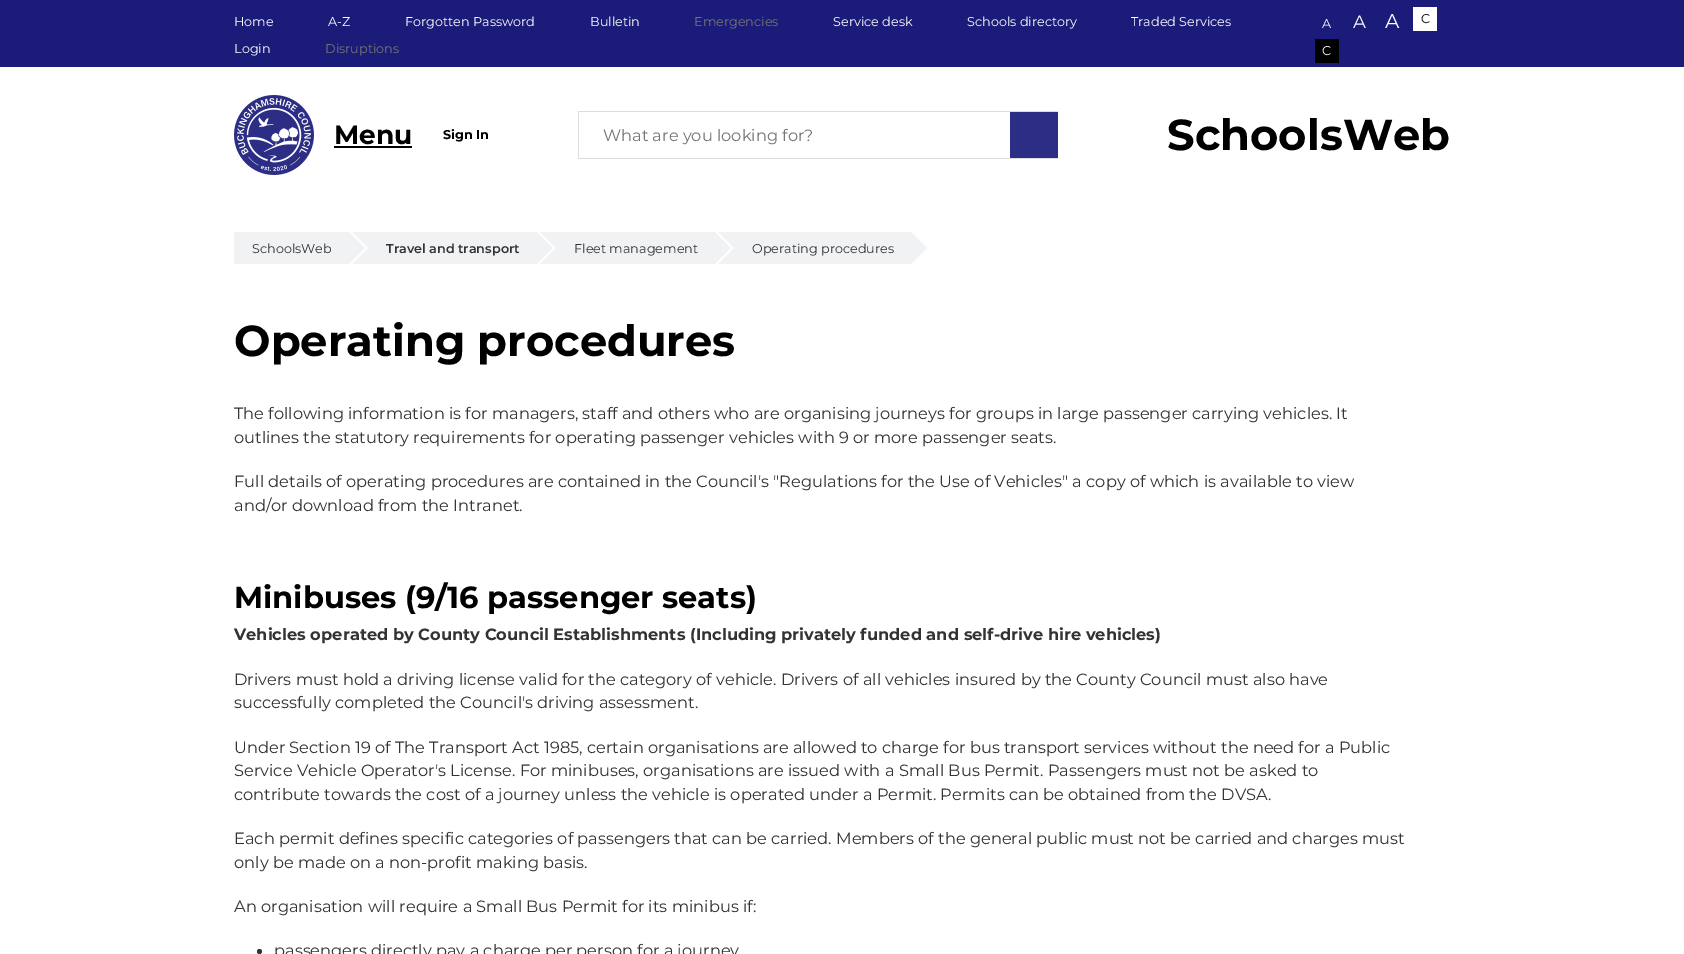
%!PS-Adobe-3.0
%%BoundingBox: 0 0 1684 954
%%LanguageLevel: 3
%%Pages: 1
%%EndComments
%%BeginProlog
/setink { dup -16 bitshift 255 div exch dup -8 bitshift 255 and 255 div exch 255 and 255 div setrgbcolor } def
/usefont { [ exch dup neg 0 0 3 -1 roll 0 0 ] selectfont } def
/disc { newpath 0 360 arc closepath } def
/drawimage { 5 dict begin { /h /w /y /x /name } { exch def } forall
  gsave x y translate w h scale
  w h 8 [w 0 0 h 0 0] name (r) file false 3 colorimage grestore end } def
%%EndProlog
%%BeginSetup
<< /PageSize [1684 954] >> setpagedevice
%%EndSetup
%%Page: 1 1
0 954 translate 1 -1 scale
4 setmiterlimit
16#FFFFFF setink
0 0 1684 954 rectfill
16#1B1C79 setink
0 0 1684 67 rectfill
/Montserrat-Regular 12.75 usefont
16#FFFFFF setink
[
    [(Home) 234 26]
    [(A-Z) 328 26]
    [(Forgotten Password) 405 26]
    [(Bulletin) 590 26]
] { aload pop moveto show } forall
16#757575 setink
694 26 moveto (Emergencies) show
16#FFFFFF setink
[
    [(Service desk) 833 26]
    [(Schools directory) 967 26]
    [(Traded Services) 1131 26]
    [(Login) 234 53]
] { aload pop moveto show } forall
16#757575 setink
325 53 moveto (Disruptions) show
16#FFFFFF setink
1322 28 moveto (A) show
/Montserrat-Regular 18 usefont
1353 28 moveto (A) show
/Montserrat-Regular 20 usefont
1385 28 moveto (A) show
1413 7 24 24 rectfill
/Montserrat-Regular 12.75 usefont
16#000000 setink
1421 23 moveto (C) show
1315 39 24 24 rectfill
16#FFFFFF setink
1322 55 moveto (C) show
(img1.raw) 234 95 80 80 drawimage
/Montserrat-Bold 26.5 usefont
16#000000 setink
334 144 moveto (Menu) show
334 146 78 2 rectfill
/Montserrat-Bold 12.75 usefont
443 139 moveto (Sign In) show
[
    [578 111 480 1 16#DDDDDD]
    [578 158 480 1 16#DDDDDD]
    [578 111 1 48 16#DDDDDD]
] { aload pop setink rectfill } forall
/Montserrat-Regular 16.25 usefont
16#757575 setink
603 141 moveto (What are you looking for?) show
16#2C2D84 setink
1010 112 48 46 rectfill
/Montserrat-Bold 43.25 usefont
16#000000 setink
1167 150 moveto (SchoolsWeb) show
16#F0F2F4 setink
234 232 115 32 rectfill
/Montserrat-Regular 12.75 usefont
16#333333 setink
252 253 moveto (SchoolsWeb) show
16#F0F2F4 setink
349 264 moveto 349 232 lineto 365 248 lineto closepath fill
368 232 169 32 rectfill
352 232 moveto 368 232 lineto 368 248 lineto closepath 368 264 moveto 352 264 lineto 368 248 lineto closepath fill
/Montserrat-SemiBold 12.75 usefont
16#333333 setink
386 253 moveto (Travel and transport) show
16#F0F2F4 setink
537 264 moveto 537 232 lineto 553 248 lineto closepath fill
556 232 159 32 rectfill
540 232 moveto 556 232 lineto 556 248 lineto closepath 556 264 moveto 540 264 lineto 556 248 lineto closepath fill
/Montserrat-Regular 12.75 usefont
16#333333 setink
574 253 moveto (Fleet management) show
16#F0F2F4 setink
715 264 moveto 715 232 lineto 731 248 lineto closepath fill
734 232 177 32 rectfill
718 232 moveto 734 232 lineto 734 248 lineto closepath 734 264 moveto 718 264 lineto 734 248 lineto closepath fill
16#333333 setink
752 253 moveto (Operating procedures) show
16#F0F2F4 setink
911 264 moveto 911 232 lineto 927 248 lineto closepath fill
/Montserrat-Bold 43.25 usefont
16#000000 setink
234 356 moveto (Operating procedures) show
/Montserrat-Regular 16.25 usefont
16#333333 setink
[
    [(The following information is for managers, staff and others who are organising journeys for groups in large passenger carrying vehicles. It) 234 419]
    [(outlines the statutory requirements for operating passenger vehicles with 9 or more passenger seats.) 234 443]
    [(Full details of operating procedures are contained in the Council's "Regulations for the Use of Vehicles" a copy of which is available to view) 234 487]
    [(and/or download from the Intranet.) 234 511]
] { aload pop moveto show } forall
/Montserrat-Bold 30.5 usefont
16#000000 setink
234 608 moveto (Minibuses \(9/16 passenger seats\)) show
/Montserrat-Bold 16.25 usefont
16#333333 setink
234 640 moveto (Vehicles operated by County Council Establishments \(Including privately funded and self-drive hire vehicles\)) show
/Montserrat-Regular 16.25 usefont
[
    [(Drivers must hold a driving license valid for the category of vehicle. Drivers of all vehicles insured by the County Council must also have) 234 685]
    [(successfully completed the Council's driving assessment.) 234 708]
    [(Under Section 19 of The Transport Act 1985, certain organisations are allowed to charge for bus transport services without the need for a Public) 234 753]
    [(Service Vehicle Operator's License. For minibuses, organisations are issued with a Small Bus Permit. Passengers must not be asked to) 234 776]
    [(contribute towards the cost of a journey unless the vehicle is operated under a Permit. Permits can be obtained from the DVSA.) 234 800]
    [(Each permit defines specific categories of passengers that can be carried. Members of the general public must not be carried and charges must) 234 844]
    [(only be made on a non-profit making basis.) 234 868]
    [(An organisation will require a Small Bus Permit for its minibus if:) 234 912]
] { aload pop moveto show } forall
259.5 951.5 2.5 disc fill
274 956 moveto (passengers directly pay a charge per person for a journey) show
showpage
%%EOF
